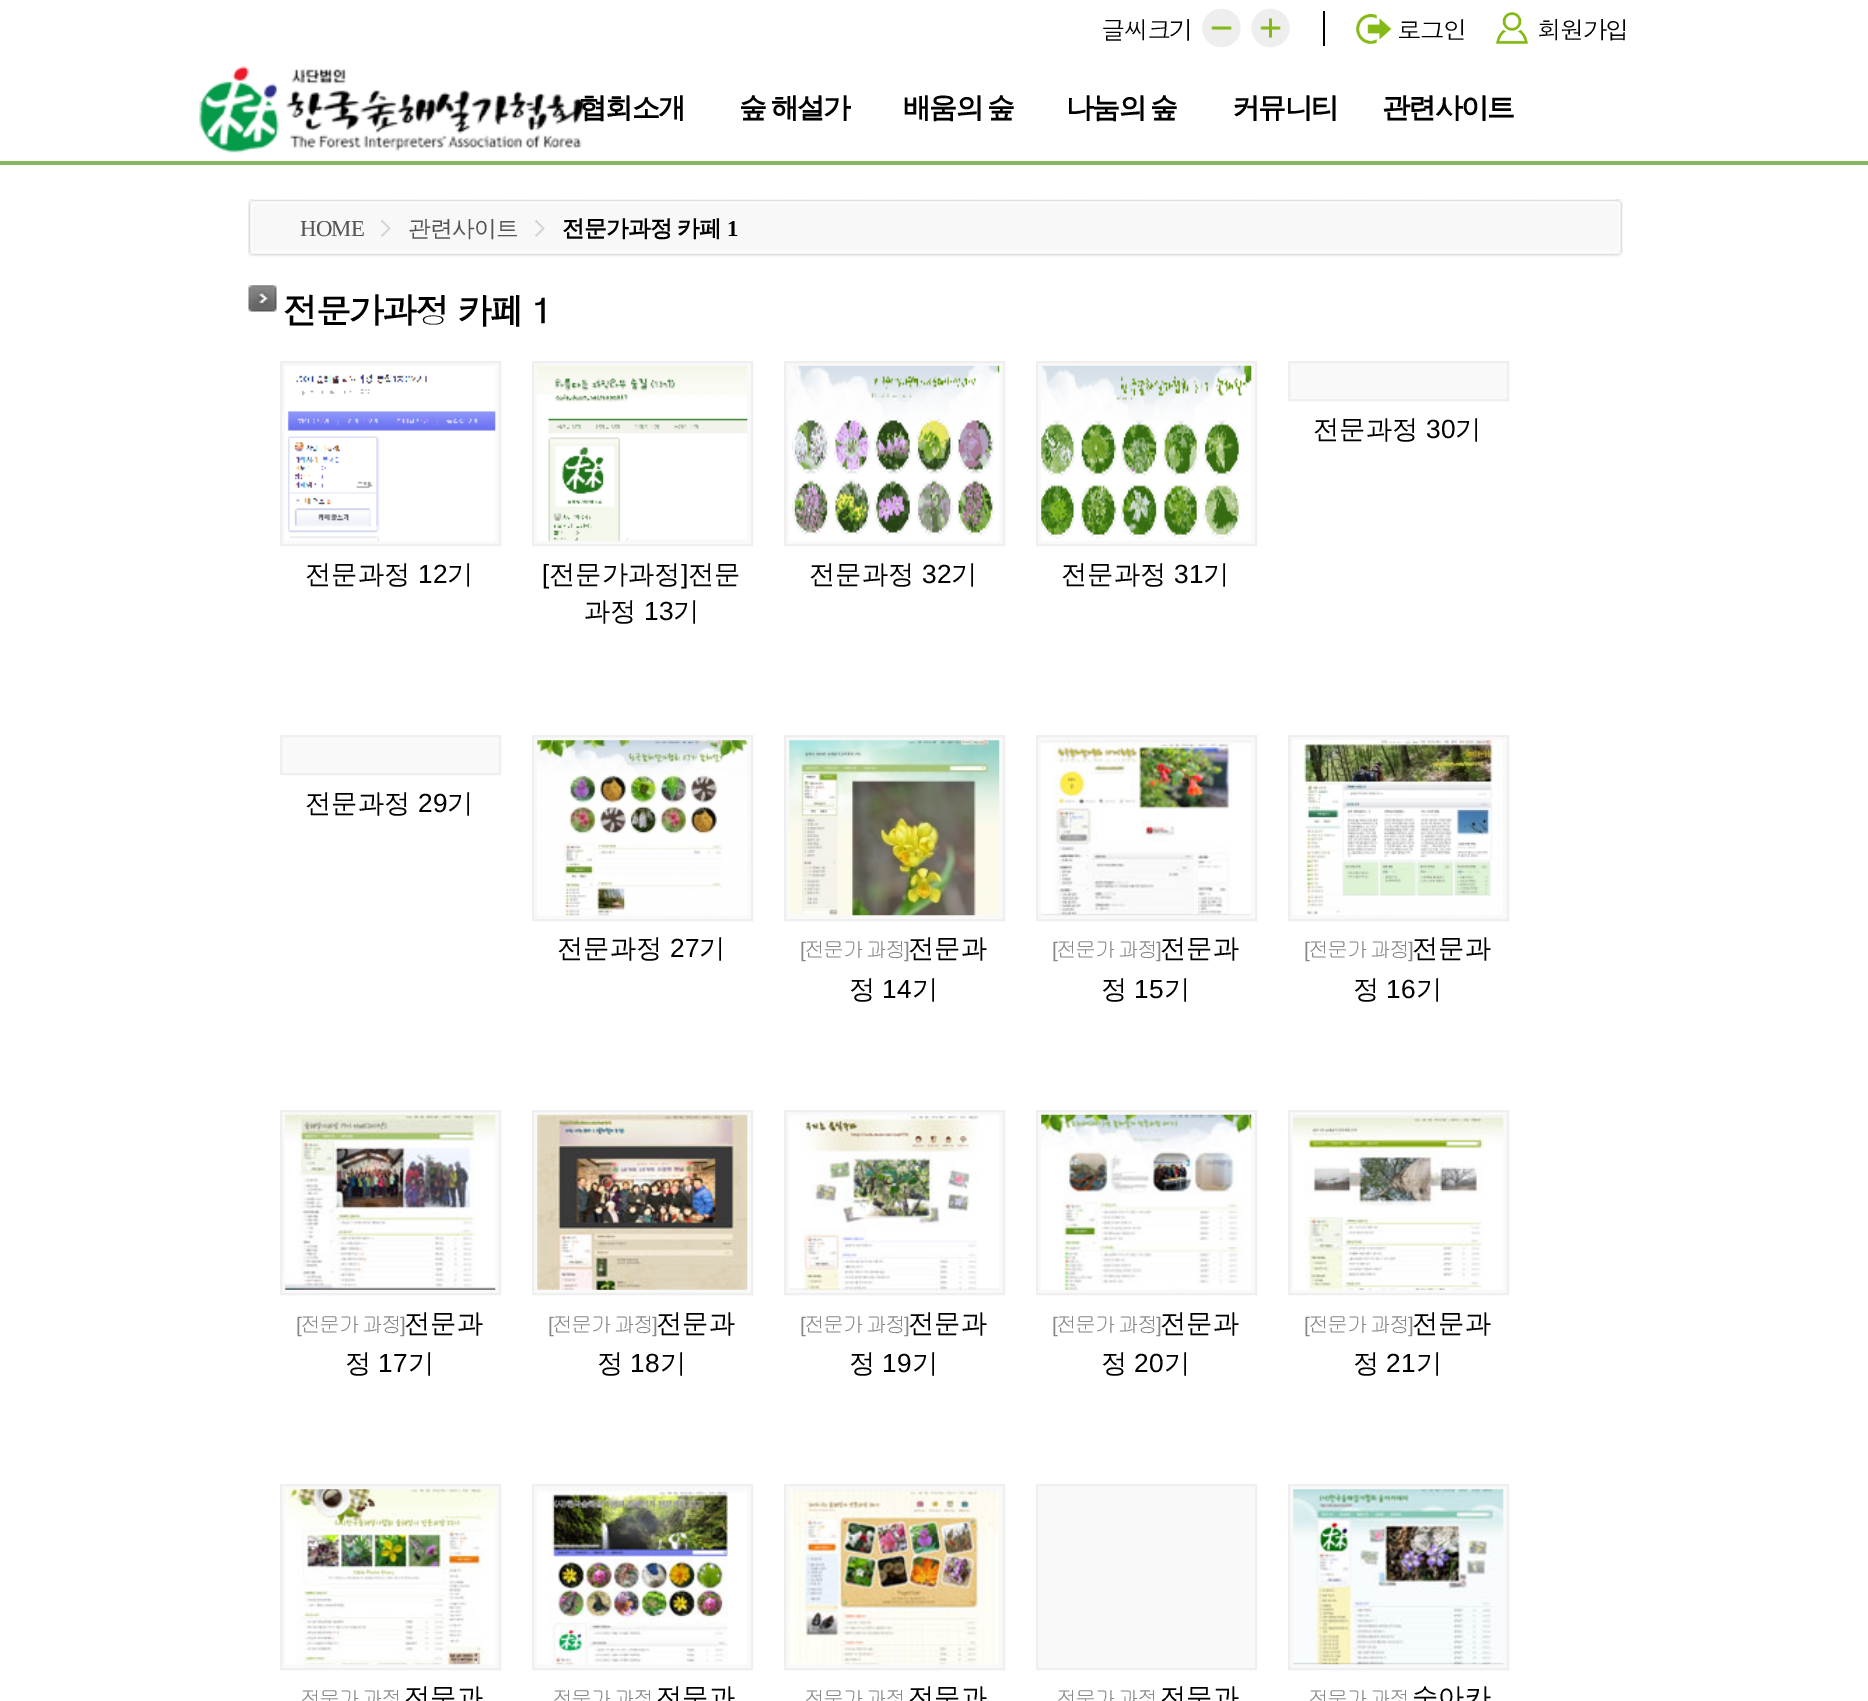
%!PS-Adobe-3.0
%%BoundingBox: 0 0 1868 1701
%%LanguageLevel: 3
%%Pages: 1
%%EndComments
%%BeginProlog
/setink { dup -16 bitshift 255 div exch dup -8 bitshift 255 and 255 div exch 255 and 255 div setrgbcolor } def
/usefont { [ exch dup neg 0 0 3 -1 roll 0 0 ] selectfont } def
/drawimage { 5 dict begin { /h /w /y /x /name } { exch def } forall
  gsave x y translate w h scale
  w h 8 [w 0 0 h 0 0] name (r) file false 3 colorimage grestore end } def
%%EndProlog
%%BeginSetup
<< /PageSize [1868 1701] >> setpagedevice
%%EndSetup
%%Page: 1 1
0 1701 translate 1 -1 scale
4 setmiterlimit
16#FFFFFF setink
0 0 1868 1701 rectfill
16#85B961 setink
0 161 1868 4 rectfill
/Dotum-Regular 24.5 usefont
16#000000 setink
1101 39 moveto -1.75 0 (글씨크기) ashow
(img1.raw) 1202 8 39 40 drawimage
(img2.raw) 1251 8 39 40 drawimage
1323 11 2 35 rectfill
(img3.raw) 1356 14 36 30 drawimage
1397 39 moveto -1.75 0 (로그인) ashow
(img4.raw) 1496 12 32 32 drawimage
1537 39 moveto -1.75 0 (회원가입) ashow
(img5.raw) 199 66 386 87 drawimage
/WenQuanYiZenHei-Bold 28 usefont
579 117 moveto -1.75 0 (협회소개) ashow
739 117 moveto -1 0 32 -1.75 0 (숲 해설가) awidthshow
903 117 moveto -1 0 32 -1.75 0 (배움의 숲) awidthshow
1066 117 moveto -1 0 32 -1.75 0 (나눔의 숲) awidthshow
1232 117 moveto -1.75 0 (커뮤니티) ashow
1382 117 moveto -1.75 0 (관련사이트) ashow
(img7.raw) 248 199 1375 59 drawimage
(img6.raw) 248 199 6 58 drawimage
(img8.raw) 381 220 10 17 drawimage
/LiberationSerif-Regular 22.75 usefont
16#555555 setink
300 236 moveto -0.75 0 (HOME) ashow
(img8.raw) 535 220 10 17 drawimage
/WenQuanYiZenHei-Medium 22.75 usefont
408 236 moveto -0.75 0 (관련사이트) ashow
/WenQuanYiZenHei-Bold 22.75 usefont
16#000000 setink
562 236 moveto -1 0 32 -0.75 0 (전문가과정 카페) awidthshow
/LiberationSerif-Bold 22.75 usefont
727 236 moveto -0.75 0 (1) ashow
(img9.raw) 1615 199 8 58 drawimage
(img10.raw) 248 285 29 27 drawimage
/Dotum-Bold 35 usefont
283 324 moveto -2.1 0 (전문가과정 카페 1) ashow
16#F9F9F9 setink
1289 362 moveto 1508 362 lineto 1508 400 lineto 1289 400 lineto closepath gsave fill grestore
16#EFEFEF setink
2 setlinewidth
stroke
/WenQuanYiZenHei-Medium 26.25 usefont
16#000000 setink
1313 438 moveto (전문과정) show
/LiberationSans-Regular 26.25 usefont
1426 438 moveto (30) show
/WenQuanYiZenHei-Medium 26.25 usefont
1455 438 moveto (기) show
16#F9F9F9 setink
281 362 moveto 500 362 lineto 500 545 lineto 281 545 lineto closepath gsave fill grestore
16#EFEFEF setink
stroke
(img11.raw) 285 366 211 175 drawimage
16#000000 setink
305 583 moveto (전문과정) show
/LiberationSans-Regular 26.25 usefont
418 583 moveto (12) show
/WenQuanYiZenHei-Medium 26.25 usefont
447 583 moveto (기) show
16#F9F9F9 setink
533 362 moveto 752 362 lineto 752 545 lineto 533 545 lineto closepath gsave fill grestore
16#EFEFEF setink
stroke
(img12.raw) 537 365 211 176 drawimage
/LiberationSans-Regular 26.25 usefont
16#000000 setink
542 583 moveto ([) show
/WenQuanYiZenHei-Medium 26.25 usefont
549 583 moveto (전문가과정) show
/LiberationSans-Regular 26.25 usefont
681 583 moveto (]) show
/WenQuanYiZenHei-Medium 26.25 usefont
688 583 moveto (전문) show
584 620 moveto (과정) show
/LiberationSans-Regular 26.25 usefont
644 620 moveto (13) show
/WenQuanYiZenHei-Medium 26.25 usefont
673 620 moveto (기) show
16#F9F9F9 setink
785 362 moveto 1004 362 lineto 1004 545 lineto 785 545 lineto closepath gsave fill grestore
16#EFEFEF setink
stroke
(img13.raw) 789 365 211 176 drawimage
16#000000 setink
809 583 moveto (전문과정) show
/LiberationSans-Regular 26.25 usefont
922 583 moveto (32) show
/WenQuanYiZenHei-Medium 26.25 usefont
951 583 moveto (기) show
16#F9F9F9 setink
1037 362 moveto 1256 362 lineto 1256 545 lineto 1037 545 lineto closepath gsave fill grestore
16#EFEFEF setink
stroke
(img14.raw) 1041 365 211 176 drawimage
16#000000 setink
1061 583 moveto (전문과정) show
/LiberationSans-Regular 26.25 usefont
1174 583 moveto (31) show
/WenQuanYiZenHei-Medium 26.25 usefont
1203 583 moveto (기) show
16#F9F9F9 setink
281 736 moveto 500 736 lineto 500 774 lineto 281 774 lineto closepath gsave fill grestore
16#EFEFEF setink
stroke
16#000000 setink
305 812 moveto (전문과정) show
/LiberationSans-Regular 26.25 usefont
418 812 moveto (29) show
/WenQuanYiZenHei-Medium 26.25 usefont
447 812 moveto (기) show
16#F9F9F9 setink
533 736 moveto 752 736 lineto 752 920 lineto 533 920 lineto closepath gsave fill grestore
16#EFEFEF setink
stroke
(img15.raw) 537 740 211 176 drawimage
16#000000 setink
557 957 moveto (전문과정) show
/LiberationSans-Regular 26.25 usefont
670 957 moveto (27) show
/WenQuanYiZenHei-Medium 26.25 usefont
699 957 moveto (기) show
16#F9F9F9 setink
785 736 moveto 1004 736 lineto 1004 920 lineto 785 920 lineto closepath gsave fill grestore
16#EFEFEF setink
stroke
(img16.raw) 789 740 211 176 drawimage
/LiberationSans-Regular 21 usefont
16#888888 setink
800 957 moveto -1.75 0 ([) ashow
/Gulim-Regular 21 usefont
804 957 moveto -1 0 32 -1.75 0 (전문가 과정) awidthshow
/LiberationSans-Regular 21 usefont
904 957 moveto -1.75 0 (]) ashow
/WenQuanYiZenHei-Medium 26.25 usefont
16#000000 setink
908 957 moveto (전문과) show
849 998 moveto (정) show
/LiberationSans-Regular 26.25 usefont
882 998 moveto (14) show
/WenQuanYiZenHei-Medium 26.25 usefont
912 998 moveto (기) show
16#F9F9F9 setink
1037 736 moveto 1256 736 lineto 1256 920 lineto 1037 920 lineto closepath gsave fill grestore
16#EFEFEF setink
stroke
(img17.raw) 1041 740 210 176 drawimage
/LiberationSans-Regular 21 usefont
16#888888 setink
1052 957 moveto -1.75 0 ([) ashow
/Gulim-Regular 21 usefont
1056 957 moveto -1 0 32 -1.75 0 (전문가 과정) awidthshow
/LiberationSans-Regular 21 usefont
1156 957 moveto -1.75 0 (]) ashow
/WenQuanYiZenHei-Medium 26.25 usefont
16#000000 setink
1160 957 moveto (전문과) show
1101 998 moveto (정) show
/LiberationSans-Regular 26.25 usefont
1134 998 moveto (15) show
/WenQuanYiZenHei-Medium 26.25 usefont
1164 998 moveto (기) show
16#F9F9F9 setink
1289 736 moveto 1508 736 lineto 1508 920 lineto 1289 920 lineto closepath gsave fill grestore
16#EFEFEF setink
stroke
(img18.raw) 1293 740 210 175 drawimage
/LiberationSans-Regular 21 usefont
16#888888 setink
1304 957 moveto -1.75 0 ([) ashow
/Gulim-Regular 21 usefont
1308 957 moveto -1 0 32 -1.75 0 (전문가 과정) awidthshow
/LiberationSans-Regular 21 usefont
1408 957 moveto -1.75 0 (]) ashow
/WenQuanYiZenHei-Medium 26.25 usefont
16#000000 setink
1412 957 moveto (전문과) show
1353 998 moveto (정) show
/LiberationSans-Regular 26.25 usefont
1386 998 moveto (16) show
/WenQuanYiZenHei-Medium 26.25 usefont
1416 998 moveto (기) show
16#F9F9F9 setink
281 1111 moveto 500 1111 lineto 500 1294 lineto 281 1294 lineto closepath gsave fill grestore
16#EFEFEF setink
stroke
(img19.raw) 285 1114 211 176 drawimage
/LiberationSans-Regular 21 usefont
16#888888 setink
296 1332 moveto -1.75 0 ([) ashow
/Gulim-Regular 21 usefont
300 1332 moveto -1 0 32 -1.75 0 (전문가 과정) awidthshow
/LiberationSans-Regular 21 usefont
400 1332 moveto -1.75 0 (]) ashow
/WenQuanYiZenHei-Medium 26.25 usefont
16#000000 setink
404 1332 moveto (전문과) show
345 1372 moveto (정) show
/LiberationSans-Regular 26.25 usefont
378 1372 moveto (17) show
/WenQuanYiZenHei-Medium 26.25 usefont
408 1372 moveto (기) show
16#F9F9F9 setink
533 1111 moveto 752 1111 lineto 752 1294 lineto 533 1294 lineto closepath gsave fill grestore
16#EFEFEF setink
stroke
(img20.raw) 537 1114 211 176 drawimage
/LiberationSans-Regular 21 usefont
16#888888 setink
548 1332 moveto -1.75 0 ([) ashow
/Gulim-Regular 21 usefont
552 1332 moveto -1 0 32 -1.75 0 (전문가 과정) awidthshow
/LiberationSans-Regular 21 usefont
652 1332 moveto -1.75 0 (]) ashow
/WenQuanYiZenHei-Medium 26.25 usefont
16#000000 setink
656 1332 moveto (전문과) show
597 1372 moveto (정) show
/LiberationSans-Regular 26.25 usefont
630 1372 moveto (18) show
/WenQuanYiZenHei-Medium 26.25 usefont
660 1372 moveto (기) show
16#F9F9F9 setink
785 1111 moveto 1004 1111 lineto 1004 1294 lineto 785 1294 lineto closepath gsave fill grestore
16#EFEFEF setink
stroke
(img21.raw) 789 1115 210 175 drawimage
/LiberationSans-Regular 21 usefont
16#888888 setink
800 1332 moveto -1.75 0 ([) ashow
/Gulim-Regular 21 usefont
804 1332 moveto -1 0 32 -1.75 0 (전문가 과정) awidthshow
/LiberationSans-Regular 21 usefont
904 1332 moveto -1.75 0 (]) ashow
/WenQuanYiZenHei-Medium 26.25 usefont
16#000000 setink
908 1332 moveto (전문과) show
849 1372 moveto (정) show
/LiberationSans-Regular 26.25 usefont
882 1372 moveto (19) show
/WenQuanYiZenHei-Medium 26.25 usefont
912 1372 moveto (기) show
16#F9F9F9 setink
1037 1111 moveto 1256 1111 lineto 1256 1294 lineto 1037 1294 lineto closepath gsave fill grestore
16#EFEFEF setink
stroke
(img22.raw) 1041 1114 211 176 drawimage
/LiberationSans-Regular 21 usefont
16#888888 setink
1052 1332 moveto -1.75 0 ([) ashow
/Gulim-Regular 21 usefont
1056 1332 moveto -1 0 32 -1.75 0 (전문가 과정) awidthshow
/LiberationSans-Regular 21 usefont
1156 1332 moveto -1.75 0 (]) ashow
/WenQuanYiZenHei-Medium 26.25 usefont
16#000000 setink
1160 1332 moveto (전문과) show
1101 1372 moveto (정) show
/LiberationSans-Regular 26.25 usefont
1134 1372 moveto (20) show
/WenQuanYiZenHei-Medium 26.25 usefont
1164 1372 moveto (기) show
16#F9F9F9 setink
1289 1111 moveto 1508 1111 lineto 1508 1294 lineto 1289 1294 lineto closepath gsave fill grestore
16#EFEFEF setink
stroke
(img23.raw) 1293 1115 211 175 drawimage
/LiberationSans-Regular 21 usefont
16#888888 setink
1304 1332 moveto -1.75 0 ([) ashow
/Gulim-Regular 21 usefont
1308 1332 moveto -1 0 32 -1.75 0 (전문가 과정) awidthshow
/LiberationSans-Regular 21 usefont
1408 1332 moveto -1.75 0 (]) ashow
/WenQuanYiZenHei-Medium 26.25 usefont
16#000000 setink
1412 1332 moveto (전문과) show
1353 1372 moveto (정) show
/LiberationSans-Regular 26.25 usefont
1386 1372 moveto (21) show
/WenQuanYiZenHei-Medium 26.25 usefont
1416 1372 moveto (기) show
16#F9F9F9 setink
281 1485 moveto 500 1485 lineto 500 1669 lineto 281 1669 lineto closepath gsave fill grestore
16#EFEFEF setink
stroke
(img24.raw) 285 1489 211 176 drawimage
/Gulim-Regular 21 usefont
16#888888 setink
300 1706 moveto -1 0 32 -1.75 0 (전문가 과정) awidthshow
/WenQuanYiZenHei-Medium 26.25 usefont
16#000000 setink
404 1706 moveto (전문과) show
16#F9F9F9 setink
533 1485 moveto 752 1485 lineto 752 1669 lineto 533 1669 lineto closepath gsave fill grestore
16#EFEFEF setink
stroke
(img25.raw) 537 1489 210 176 drawimage
/Gulim-Regular 21 usefont
16#888888 setink
552 1706 moveto -1 0 32 -1.75 0 (전문가 과정) awidthshow
/WenQuanYiZenHei-Medium 26.25 usefont
16#000000 setink
656 1706 moveto (전문과) show
16#F9F9F9 setink
785 1485 moveto 1004 1485 lineto 1004 1669 lineto 785 1669 lineto closepath gsave fill grestore
16#EFEFEF setink
stroke
(img26.raw) 789 1489 210 176 drawimage
/Gulim-Regular 21 usefont
16#888888 setink
804 1706 moveto -1 0 32 -1.75 0 (전문가 과정) awidthshow
/WenQuanYiZenHei-Medium 26.25 usefont
16#000000 setink
908 1706 moveto (전문과) show
16#F9F9F9 setink
1037 1485 moveto 1256 1485 lineto 1256 1669 lineto 1037 1669 lineto closepath gsave fill grestore
16#EFEFEF setink
stroke
/Gulim-Regular 21 usefont
16#888888 setink
1056 1706 moveto -1 0 32 -1.75 0 (전문가 과정) awidthshow
/WenQuanYiZenHei-Medium 26.25 usefont
16#000000 setink
1160 1706 moveto (전문과) show
16#F9F9F9 setink
1289 1485 moveto 1508 1485 lineto 1508 1669 lineto 1289 1669 lineto closepath gsave fill grestore
16#EFEFEF setink
stroke
(img27.raw) 1293 1489 211 176 drawimage
/Gulim-Regular 21 usefont
16#888888 setink
1308 1706 moveto -1 0 32 -1.75 0 (전문가 과정) awidthshow
/WenQuanYiZenHei-Medium 26.25 usefont
16#000000 setink
1412 1706 moveto (숲아카) show
showpage
%%EOF
